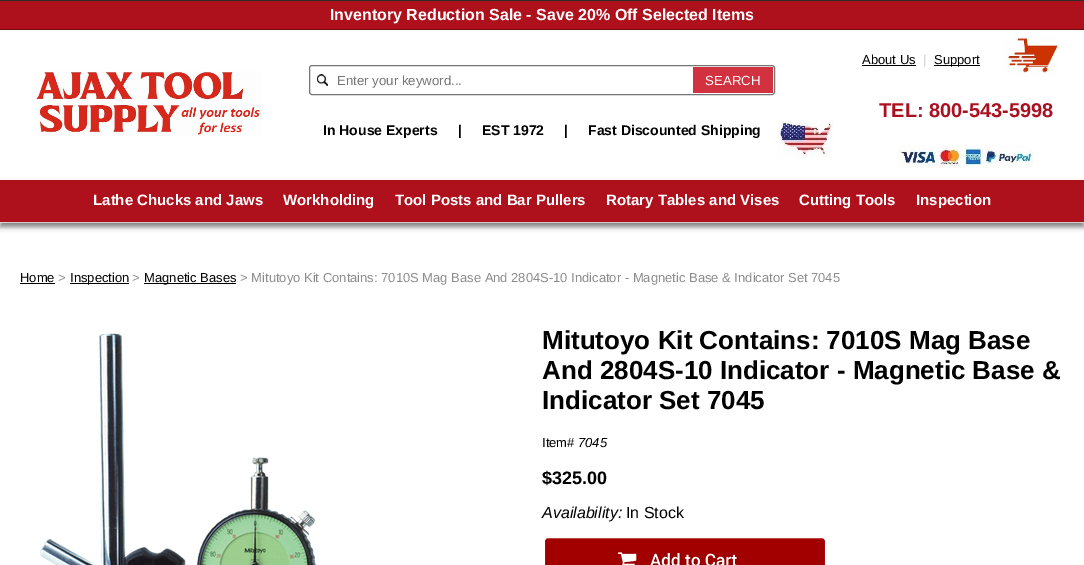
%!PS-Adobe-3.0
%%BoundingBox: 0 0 1084 565
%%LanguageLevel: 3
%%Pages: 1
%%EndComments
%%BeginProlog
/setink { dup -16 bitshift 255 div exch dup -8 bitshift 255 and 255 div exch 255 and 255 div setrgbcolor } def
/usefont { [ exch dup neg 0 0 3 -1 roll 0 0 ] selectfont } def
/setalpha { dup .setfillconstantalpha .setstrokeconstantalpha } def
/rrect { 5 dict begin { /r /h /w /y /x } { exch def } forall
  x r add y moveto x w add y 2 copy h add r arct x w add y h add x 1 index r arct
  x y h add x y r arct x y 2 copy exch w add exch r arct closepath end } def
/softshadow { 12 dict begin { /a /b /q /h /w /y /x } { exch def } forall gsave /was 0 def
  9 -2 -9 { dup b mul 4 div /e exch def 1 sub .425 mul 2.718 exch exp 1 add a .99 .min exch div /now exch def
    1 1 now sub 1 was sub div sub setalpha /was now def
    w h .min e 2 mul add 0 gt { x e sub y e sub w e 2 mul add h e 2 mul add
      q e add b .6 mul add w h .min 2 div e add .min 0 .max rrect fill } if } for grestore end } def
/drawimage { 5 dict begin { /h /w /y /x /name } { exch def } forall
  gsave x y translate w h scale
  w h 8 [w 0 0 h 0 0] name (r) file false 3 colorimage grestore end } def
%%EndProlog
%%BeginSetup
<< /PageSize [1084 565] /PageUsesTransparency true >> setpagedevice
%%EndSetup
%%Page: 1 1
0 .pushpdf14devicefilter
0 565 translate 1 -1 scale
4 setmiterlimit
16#FFFFFF setink
0 0 1084 565 rectfill
[
    [0 1 1084 28 16#AE101C]
    [0 0 1084 1 16#2C2B2A]
    [0 29 1084 1 16#730711]
] { aload pop setink rectfill } forall
/LiberationSans-Bold 16 usefont
16#FFFFFF setink
330 20 moveto (Inventory Reduction Sale - Save 20% Off Selected Items) show
/LiberationSans-Regular 13 usefont
16#000000 setink
862 64 moveto (About Us) show
862 65 54 1 rectfill
16#CCCCCC setink
923 64 moveto (|) show
16#000000 setink
934 65 46 1 rectfill
934 64 moveto (Support) show
(img1.raw) 1004 36 54 39 drawimage
(img2.raw) 36 71 225 65 drawimage
(img3.raw) 317 74 11 12 drawimage
16#777677 setink
309.5 65.5 465 29 2.5 rrect stroke
/LiberationSans-Regular 13.25 usefont
16#757575 setink
337 85 moveto (Enter your keyword...) show
16#D2313F setink
693 67 80 26 rectfill
16#FFFFFF setink
705 85 moveto (SEARCH) show
/LiberationSans-Bold 20 usefont
16#A91120 setink
879 117 moveto (TEL: 800-543-5998) show
/LiberationSans-Bold 14 usefont
16#000000 setink
[
    [(In House Experts) 323 135]
    [(|) 458 135]
    [(EST 1972) 482 135]
    [(|) 564 135]
    [(Fast Discounted Shipping) 588 135]
] { aload pop moveto show } forall
(img4.raw) 778 120 56 38 drawimage
(img5.raw) 898 145 136 23 drawimage
0 184 1084 43 0 2.5 0.48 softshadow
16#AE101C setink
0 180 1084 42 rectfill
16#D0D0D0 setink
0 222 1084 1 rectfill
/LiberationSans-Bold 15 usefont
16#FFFFFF setink
[
    [(Lathe Chucks and Jaws) 93 205]
    [(Workholding) 283 205]
    [(Tool Posts and Bar Pullers) 395 205]
    [(Rotary Tables and Vises) 606 205]
    [(Cutting Tools) 799 205]
    [(Inspection) 916 205]
] { aload pop moveto show } forall
/LiberationSans-Regular 13 usefont
16#000000 setink
20 282 moveto (Home) show
20 283 35 1 rectfill
16#8C8C8C setink
58 282 moveto (>) show
16#000000 setink
70 283 59 1 rectfill
70 282 moveto (Inspection) show
16#8C8C8C setink
132 282 moveto (>) show
16#000000 setink
144 283 92 1 rectfill
144 282 moveto (Magnetic Bases) show
16#8C8C8C setink
240 282 moveto (> Mitutoyo Kit Contains: 7010S Mag Base And 2804S-10 Indicator - Magnetic Base & Indicator Set 7045) show
(img6.raw) 40 333 276 232 drawimage
/LiberationSans-Bold 26 usefont
16#000000 setink
[
    [(Mitutoyo Kit Contains: 7010S Mag Base) 542 349]
    [(And 2804S-10 Indicator - Magnetic Base &) 542 379]
    [(Indicator Set 7045) 542 409]
] { aload pop moveto show } forall
/LiberationSans-Regular 13 usefont
542 447 moveto (Item#) show
/LiberationSans-Italic 13 usefont
578 447 moveto (7045) show
/LiberationSans-Bold 18 usefont
542 484 moveto ($325.00) show
/LiberationSans-Italic 16 usefont
542 518 moveto (Availability:) show
/LiberationSans-Regular 16 usefont
626 518 moveto (In Stock) show
(img7.raw) 545 538 280 27 drawimage
.poppdf14devicefilter showpage
%%EOF
